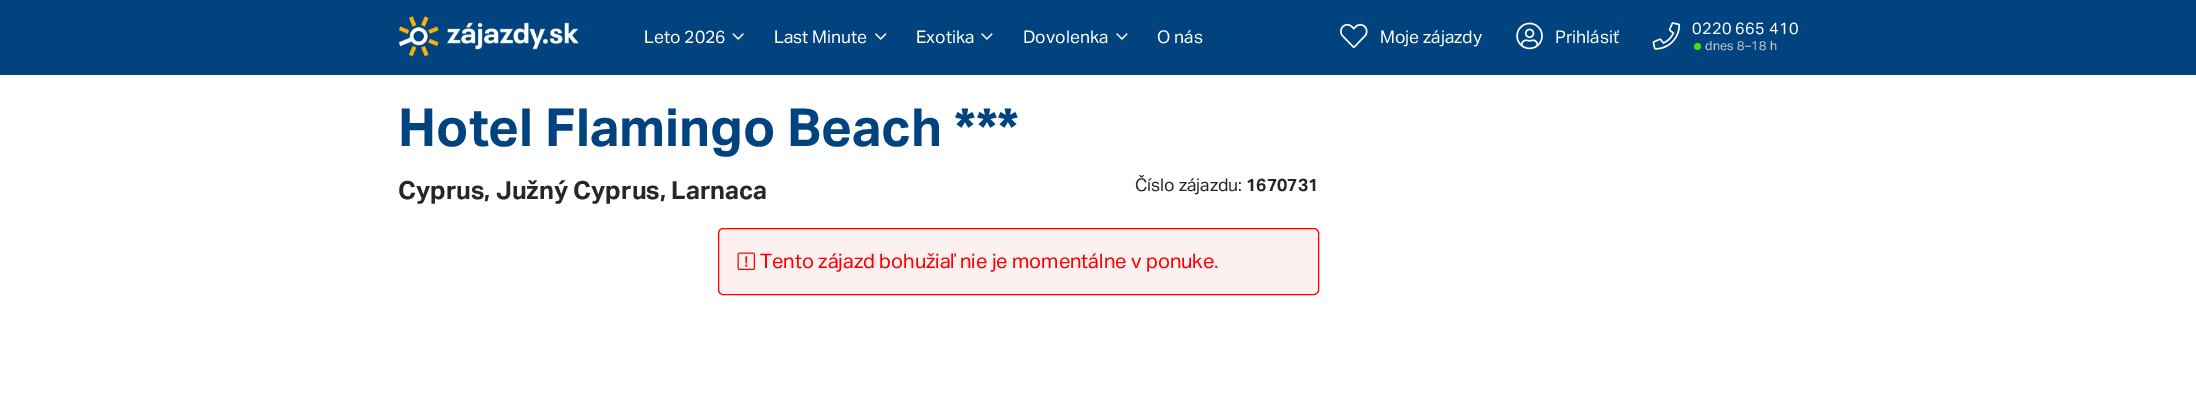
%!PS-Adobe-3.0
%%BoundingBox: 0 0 2196 404
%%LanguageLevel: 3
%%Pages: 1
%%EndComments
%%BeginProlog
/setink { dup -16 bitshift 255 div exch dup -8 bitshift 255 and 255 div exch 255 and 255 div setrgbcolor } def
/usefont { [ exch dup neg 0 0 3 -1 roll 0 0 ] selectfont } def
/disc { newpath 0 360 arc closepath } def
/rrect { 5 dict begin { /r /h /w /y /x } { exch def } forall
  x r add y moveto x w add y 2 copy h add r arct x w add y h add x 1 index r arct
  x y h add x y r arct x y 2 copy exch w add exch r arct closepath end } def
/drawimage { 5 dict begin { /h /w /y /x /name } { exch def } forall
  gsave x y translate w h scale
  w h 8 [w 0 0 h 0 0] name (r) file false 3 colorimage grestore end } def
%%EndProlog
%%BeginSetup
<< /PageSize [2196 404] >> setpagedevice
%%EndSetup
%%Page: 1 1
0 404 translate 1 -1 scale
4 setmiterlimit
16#FFFFFF setink
0 0 2196 404 rectfill
16#00437E setink
0 0 2196 75 rectfill
(img1.raw) 398 16 181 41 drawimage
/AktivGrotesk-Regular 17.5 usefont
16#FFFFFF setink
644 43 moveto (Leto 2026) show
(img2.raw) 732 33 12 7 drawimage
774 43 moveto (Last Minute) show
(img3.raw) 875 33 12 7 drawimage
916 43 moveto (Exotika) show
(img4.raw) 981 33 12 7 drawimage
1023 43 moveto (Dovolenka) show
(img4.raw) 1116 33 12 7 drawimage
1157 43 moveto (O nás) show
(img5.raw) 1340 23 28 25 drawimage
1380 43 moveto (Moje zájazdy) show
(img6.raw) 1516 22 27 28 drawimage
1555 43 moveto (Prihlásiť) show
(img7.raw) 1652 22 29 28 drawimage
/AktivGrotesk-Regular 16.25 usefont
1692 34 moveto 0.25 0 (0220 665 410) ashow
16#44DE00 setink
1697.5 46.5 3.5 disc fill
/AktivGrotesk-Regular 12.5 usefont
16#CCCCCC setink
1705 50 moveto 0.25 0 (dnes 8–18 h) ashow
/AktivGrotesk-Bold 52.5 usefont
16#00437E setink
398 146 moveto (Hotel Flamingo Beach ***) show
/AktivGrotesk-Bold 25 usefont
16#272727 setink
398 199 moveto (Cyprus, Južný Cyprus, Larnaca) show
/AktivGrotesk-Regular 17.5 usefont
1135 191 moveto (Číslo zájazdu:) show
/AktivGrotesk-Bold 17.5 usefont
1246 191 moveto (1670731) show
16#FDF0F0 setink
718.5 228.5 600 66 4.5 rrect gsave fill grestore
16#FF0000 setink
stroke
(img8.raw) 737 252 18 18 drawimage
/AktivGrotesk-Regular 20 usefont
760 268 moveto (Tento zájazd bohužia) show
/LiberationSans-Regular 20 usefont
950 268 moveto (ľ) show
/AktivGrotesk-Regular 20 usefont
960 268 moveto (nie je momentálne v ponuke.) show
showpage
%%EOF
